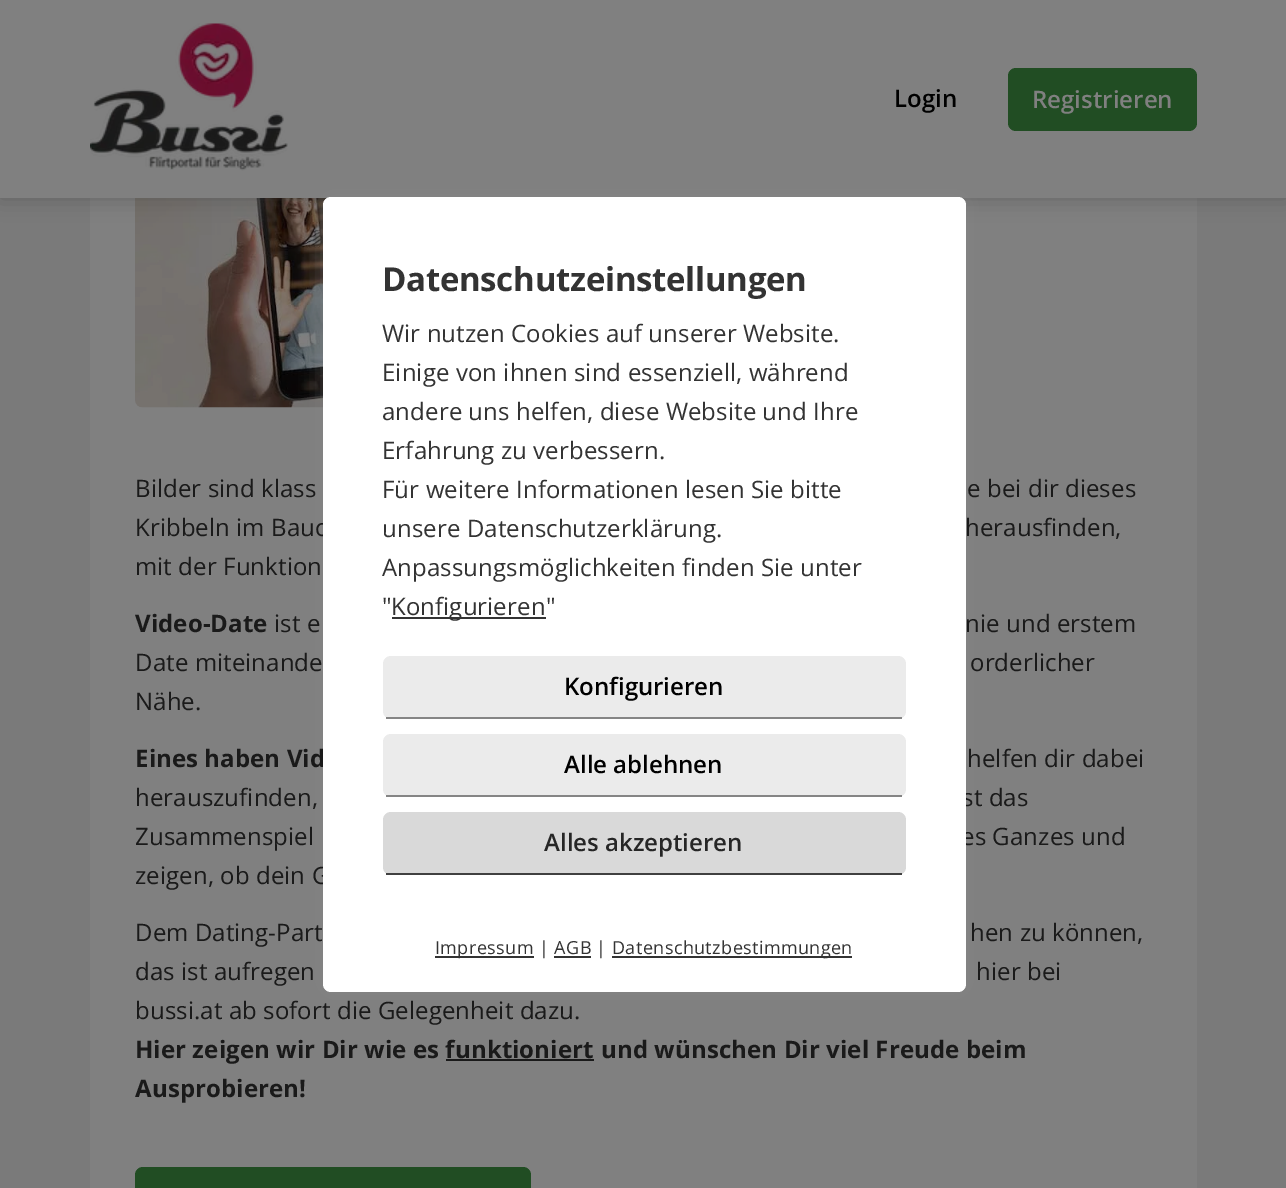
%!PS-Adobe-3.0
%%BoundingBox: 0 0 1286 1188
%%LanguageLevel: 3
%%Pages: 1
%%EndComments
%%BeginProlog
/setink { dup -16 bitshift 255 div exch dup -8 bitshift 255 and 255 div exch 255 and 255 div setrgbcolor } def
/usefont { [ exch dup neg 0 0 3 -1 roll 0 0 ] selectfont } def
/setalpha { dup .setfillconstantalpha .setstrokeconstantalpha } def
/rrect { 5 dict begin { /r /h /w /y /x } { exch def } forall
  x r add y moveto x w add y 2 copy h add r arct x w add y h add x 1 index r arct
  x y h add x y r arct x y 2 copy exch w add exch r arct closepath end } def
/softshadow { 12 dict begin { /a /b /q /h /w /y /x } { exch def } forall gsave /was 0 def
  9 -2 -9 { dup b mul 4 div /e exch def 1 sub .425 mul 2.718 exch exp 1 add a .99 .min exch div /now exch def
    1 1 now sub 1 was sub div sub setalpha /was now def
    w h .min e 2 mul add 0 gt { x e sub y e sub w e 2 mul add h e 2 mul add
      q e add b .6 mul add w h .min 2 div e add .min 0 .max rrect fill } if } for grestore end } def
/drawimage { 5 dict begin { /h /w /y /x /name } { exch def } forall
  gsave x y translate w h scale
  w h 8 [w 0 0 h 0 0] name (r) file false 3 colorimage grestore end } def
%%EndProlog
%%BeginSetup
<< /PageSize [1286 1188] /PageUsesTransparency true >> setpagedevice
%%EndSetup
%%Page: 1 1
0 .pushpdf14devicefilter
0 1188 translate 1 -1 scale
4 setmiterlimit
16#7A7A7A setink
0 0 1286 1188 rectfill
16#808080 setink
90 198 1107 990 rectfill
(img2.raw) 135 198 193 210 drawimage
16#444444 setink
0 0 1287 198 0 11 0.5 softshadow
16#808080 setink
0 0 1286 198 rectfill
(img1.raw) 90 23 198 148 drawimage
/OpenSans-SemiBold 24 usefont
16#000000 setink
894 107 moveto (Login) show
16#214D23 setink
1008 68 189 63 8 rrect fill
16#808080 setink
1032 108 moveto (Registrieren) show
gsave
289 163 moveto 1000 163 lineto 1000 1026 lineto 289 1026 lineto closepath 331 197 moveto 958 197 lineto 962.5 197 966 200.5 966 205 curveto 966 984 lineto 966 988.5 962.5 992 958 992 curveto 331 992 lineto 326.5 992 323 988.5 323 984 curveto 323 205 lineto 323 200.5 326.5 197 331 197 curveto closepath eoclip newpath
16#888888 setink
323 197 643 795 8 11 0.5 softshadow
grestore
/OpenSans-Regular 24 usefont
16#1A1A1A setink
135 536 moveto 0.1 0 (Kribbeln im Bauc) ashow
/OpenSans-Bold 24 usefont
135 767 moveto 0.1 0 (Eines haben Vid) ashow
/OpenSans-Regular 24 usefont
962 806 moveto 0.1 0 (st das) ashow
961 845 moveto 0.1 0 (es Ganzes und) ashow
135 884 moveto 0.1 0 (zeigen, ob dein G) ashow
16#FFFFFF setink
323 197 643 795 8 rrect fill
/OpenSans-Bold 33 usefont
16#333333 setink
382 291 moveto -0.3 0 (Datenschutzeinstellungen) ashow
/OpenSans-Regular 24 usefont
382 342 moveto 0.1 0 (Wir nutzen Cookies auf unserer Website.) ashow
382 381 moveto 0.1 0 (Einige von ihnen sind essenziell, während) ashow
382 420 moveto 0.1 0 (andere uns helfen, diese Website und Ihre) ashow
382 459 moveto 0.1 0 (Erfahrung zu verbessern.) ashow
382 498 moveto 0.1 0 (Für weitere Informationen lesen Sie bitte) ashow
382 537 moveto 0.1 0 (unsere Datenschutzerklärung.) ashow
382 576 moveto 0.1 0 (Anpassungsmöglichkeiten finden Sie unter) ashow
382 615 moveto 0.1 0 (") ashow
392 617 154 2 rectfill
391 615 moveto 0.1 0 (Konfigurieren) ashow
546 615 moveto 0.1 0 (") ashow
16#EBEBEB setink
383 656 523 63 8 rrect fill
16#858585 setink
386 717 516 2 rectfill
/OpenSans-SemiBold 24 usefont
16#000000 setink
564 695 moveto (Konfigurieren) show
16#EBEBEB setink
383 734 523 63 8 rrect fill
16#858585 setink
386 795 516 2 rectfill
16#000000 setink
564 773 moveto (Alle ablehnen) show
16#D9D9D9 setink
383 812 523 63 8 rrect fill
16#404040 setink
386 873 516 2 rectfill
16#262626 setink
544 851 moveto (Alles akzeptieren) show
16#333333 setink
435 956 99 2 rectfill
/OpenSans-Regular 18 usefont
435 954 moveto 0.4 0 (Impressum) ashow
539 954 moveto 0.4 0 (| AGB) ashow
596 954 moveto 0.4 0 (|) ashow
612 956 240 2 rectfill
612 954 moveto 0.4 0 (Datenschutzbestimmungen) ashow
554 956 37 2 rectfill
/OpenSans-Regular 24 usefont
16#1A1A1A setink
135 497 moveto 0.1 0 (Bilder sind klass) ashow
967 497 moveto 0.1 0 (e bei dir dieses) ashow
965 536 moveto 0.1 0 (herausfinden,) ashow
135 575 moveto 0.1 0 (mit der Funktion) ashow
/OpenSans-Bold 24 usefont
135 632 moveto 0.1 0 (Video-Date) ashow
/OpenSans-Regular 24 usefont
274 632 moveto 0.1 0 (ist e) ashow
965 632 moveto 0.1 0 (nie und erstem) ashow
135 671 moveto 0.1 0 (Date miteinande) ashow
970 671 moveto 0.1 0 (orderlicher) ashow
135 710 moveto 0.1 0 (Nähe.) ashow
967 767 moveto 0.1 0 (helfen dir dabei) ashow
135 806 moveto 0.1 0 (herauszufinden,) ashow
135 845 moveto 0.1 0 (Zusammenspiel) ashow
135 941 moveto 0.1 0 (Dem Dating-Part) ashow
970 941 moveto 0.1 0 (hen zu können,) ashow
135 980 moveto 0.1 0 (das ist aufregen) ashow
976 980 moveto 0.1 0 (hier bei) ashow
135 1019 moveto 0.1 0 (bussi.at ab sofort die Gelegenheit dazu.) ashow
/OpenSans-Bold 24 usefont
135 1058 moveto 0.1 0 (Hier zeigen wir Dir wie es funktioniert) ashow
446 1059 148 2 rectfill
601 1058 moveto 0.1 0 (und wünschen Dir viel Freude beim) ashow
135 1097 moveto 0.1 0 (Ausprobieren!) ashow
16#214D23 setink
135 1167 396 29 8 rrect fill
.poppdf14devicefilter showpage
%%EOF
